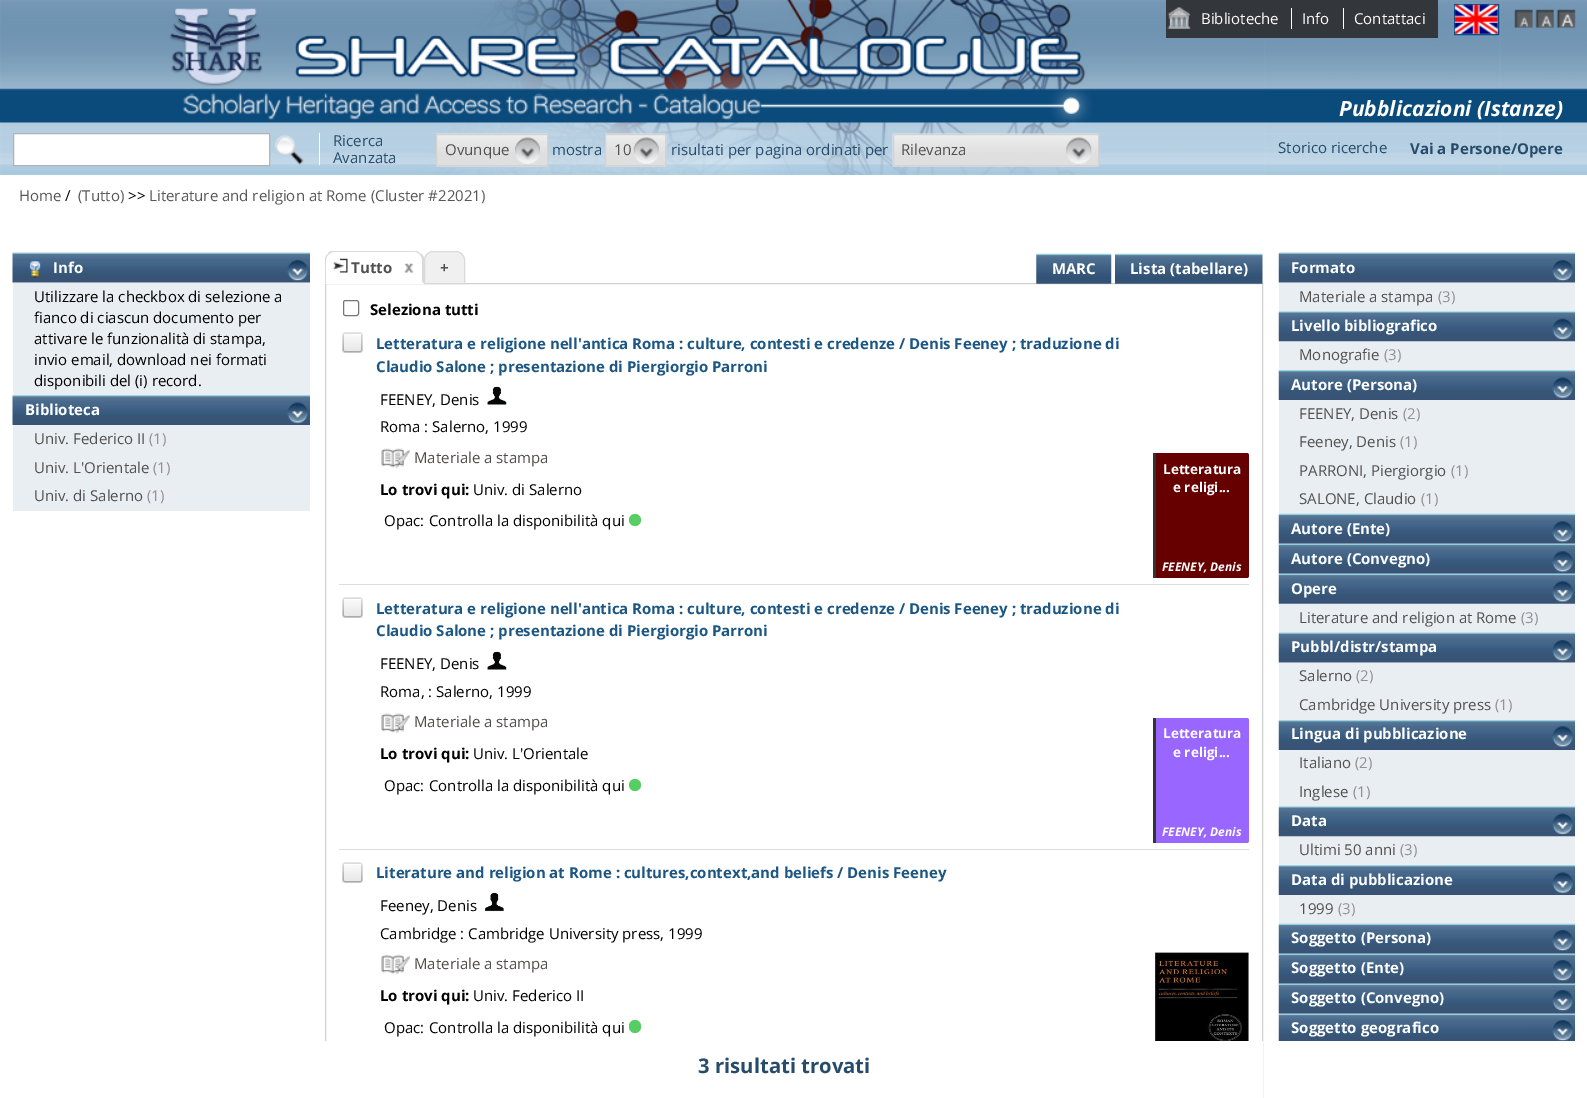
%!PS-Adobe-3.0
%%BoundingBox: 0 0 1587 1098
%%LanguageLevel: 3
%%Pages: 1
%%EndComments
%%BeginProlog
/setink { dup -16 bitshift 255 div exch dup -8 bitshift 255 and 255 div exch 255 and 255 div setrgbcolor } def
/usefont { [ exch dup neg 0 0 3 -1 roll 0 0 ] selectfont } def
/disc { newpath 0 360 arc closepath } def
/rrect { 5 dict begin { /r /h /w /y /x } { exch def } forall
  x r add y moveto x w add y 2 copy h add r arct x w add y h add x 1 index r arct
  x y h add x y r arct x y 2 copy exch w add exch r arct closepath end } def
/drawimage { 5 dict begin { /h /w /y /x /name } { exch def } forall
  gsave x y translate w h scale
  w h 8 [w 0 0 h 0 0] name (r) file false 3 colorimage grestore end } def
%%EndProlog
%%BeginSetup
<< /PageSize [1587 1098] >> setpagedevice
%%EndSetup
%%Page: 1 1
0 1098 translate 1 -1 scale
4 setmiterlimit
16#FFFFFF setink
0 0 1587 1098 rectfill
(img1.raw) 1265 0 322 175 drawimage
(img2.raw) 0 0 1265 175 drawimage
16#33363B setink
1166 0 272 38 rectfill
(img3.raw) 1167 7 24 22 drawimage
/OpenSans-Regular 15 usefont
16#FFFFFF setink
1201 24 moveto (Biblioteche) show
1291 8 1 21 rectfill
1302 24 moveto (Info) show
1343 8 1 21 rectfill
1354 24 moveto (Contattaci) show
16#074E8B setink
1454.5 4.5 44 30 rectstroke
(img4.raw) 1454 4 44 30 drawimage
(img5.raw) 1514 9 19 19 drawimage
(img6.raw) 1535 9 19 19 drawimage
(img7.raw) 1556 9 20 19 drawimage
/OpenSans-BoldItalic 21 usefont
16#FFFFFF setink
1339 116 moveto (Pubblicazioni \(Istanze\)) show
13.5 133.5 moveto 269.5 133.5 lineto 269.5 165.5 lineto 13.5 165.5 lineto closepath gsave fill grestore
16#B3B3B3 setink
stroke
(img8.raw) 275 134 29 31 drawimage
16#FFFFFF setink
319 133 1 32 rectfill
/OpenSans-Regular 15 usefont
16#274B6B setink
333 146 moveto (Ricerca) show
333 163 moveto (Avanzata) show
(img9.raw) 436 133 112 34 drawimage
16#D3D3D3 setink
436.5 134.5 111 31 rectstroke
16#525151 setink
445 155 moveto (Ovunque) show
(img10.raw) 515 137 25 27 drawimage
16#274B6B setink
552 155 moveto (mostra) show
(img11.raw) 605 133 62 34 drawimage
16#D3D3D3 setink
605.5 134.5 60 31 rectstroke
16#525151 setink
614 155 moveto (10) show
(img12.raw) 633 137 26 27 drawimage
16#274B6B setink
671 155 moveto (risultati per pagina ordinati per) show
(img13.raw) 892 133 207 34 drawimage
16#D3D3D3 setink
893.5 134.5 205 31 rectstroke
16#525151 setink
901 155 moveto (Rilevanza) show
(img14.raw) 1066 137 26 27 drawimage
16#274B6B setink
1278 153 moveto (Storico ricerche) show
/OpenSans-Bold 15 usefont
1410 154 moveto (Vai a Persone/Opere) show
/OpenSans-Regular 15 usefont
16#575757 setink
19 201 moveto (Home) show
16#000000 setink
65 201 moveto (/) show
16#575757 setink
78 201 moveto (\(Tutto\)) show
16#000000 setink
128 201 moveto (>>) show
16#575757 setink
149 201 moveto (Literature and religion at Rome \(Cluster #22021\)) show
16#E9EEF2 setink
13 283 297 112 rectfill
(img15.raw) 12 252 298 31 drawimage
(img16.raw) 287 260 21 21 drawimage
(img17.raw) 28 260 14 18 drawimage
/OpenSans-Bold 15 usefont
16#FFFFFF setink
53 273 moveto (Info) show
/OpenSans-Regular 15 usefont
16#000000 setink
[
    [(Utilizzare la checkbox di selezione a) 34 302]
    [(fianco di ciascun documento per) 34 323]
    [(attivare le funzionalità di stampa,) 34 344]
    [(invio email, download nei formati) 34 365]
    [(disponibili del \(i\) record.) 34 386]
] { aload pop moveto show } forall
16#E9EEF2 setink
13 425 297 86 rectfill
(img18.raw) 12 395 298 30 drawimage
(img19.raw) 287 402 21 22 drawimage
/OpenSans-Bold 15 usefont
16#FFFFFF setink
25 415 moveto (Biblioteca) show
/OpenSans-Regular 15 usefont
16#525151 setink
34 444 moveto (Univ. Federico II) show
16#929191 setink
149 444 moveto (\(1\)) show
16#525151 setink
34 473 moveto (Univ. L'Orientale) show
16#929191 setink
153 473 moveto (\(1\)) show
16#525151 setink
34 501 moveto (Univ. di Salerno) show
16#929191 setink
147 501 moveto (\(1\)) show
16#D1D1D2 setink
325.5 283.5 937 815 rectstroke
16#FFFFFF setink
334 251 moveto 415 251 lineto 420 251 424 255 424 260 curveto 424 284 lineto 325 284 lineto 325 260 lineto 325 255 329 251 334 251 curveto closepath fill
16#DADADB setink
334 252 moveto 332 252 330 253 328 255 curveto 328 254 lineto 328 253 330 251 332 251 curveto 417 251 lineto 421 254 lineto 420 255 lineto 419 253 417 252 415 252 curveto closepath fill
421.5 253.5 moveto 422.5 255 423.5 256 424 258 curveto 424 284 lineto 422 282 lineto 422 260 lineto 422 258 421.5 256 420 255 curveto closepath fill
16#FFFFFF setink
424 284 moveto 422 282 lineto 327 282 lineto 325 284 lineto closepath fill
16#DADADB setink
325 284 moveto 327 282 lineto 326 282 lineto 326 260 lineto 326 258 327 256 328.5 254.5 curveto 327.5 254 lineto 326 255.5 325 257.5 325 260 curveto closepath fill
(img20.raw) 333 258 15 15 drawimage
/OpenSans-Bold 15 usefont
16#525151 setink
351 273 moveto (Tutto) show
(img21.raw) 404 263 10 10 drawimage
16#F0F0F0 setink
433 251.5 moveto 456 251.5 lineto 460.5 251.5 464.5 255.5 464.5 260 curveto 464.5 283.5 lineto 424.5 283.5 lineto 424.5 260 lineto 424.5 255.5 428.5 251.5 433 251.5 curveto closepath gsave fill grestore
16#DADADB setink
stroke
16#525151 setink
440 273 moveto (+) show
(img22.raw) 1036 253 76 31 drawimage
16#FFFFFF setink
1052 274 moveto (MARC) show
(img23.raw) 1115 253 148 31 drawimage
1130 274 moveto (Lista \(tabellare\)) show
16#767676 setink
343.5 300.5 15 15 2 rrect stroke
16#000000 setink
370 315 moveto (Seleziona tutti) show
16#DDDDDD setink
339 584 910 1 rectfill
(img24.raw) 342 332 21 21 drawimage
16#1C5784 setink
376 349 moveto (Letteratura e religione nell'antica Roma : culture, contesti e credenze / Denis Feeney ; traduzione di) show
376 372 moveto (Claudio Salone ; presentazione di Piergiorgio Parroni) show
/OpenSans-Regular 15 usefont
16#000000 setink
380 405 moveto (FEENEY, Denis) show
(img25.raw) 487 386 20 19 drawimage
380 432 moveto (Roma : Salerno, 1999) show
(img26.raw) 381 448 29 21 drawimage
16#514B4B setink
414 463 moveto (Materiale a stampa) show
/OpenSans-Bold 15 usefont
16#000000 setink
380 495 moveto (Lo trovi qui:) show
/OpenSans-Regular 15 usefont
[
    [(Univ. di Salerno) 473 495]
    [(Opac:) 384 526]
    [(Controlla la disponibilità qui) 429 526]
] { aload pop moveto show } forall
16#56CE64 setink
635 520 6 disc fill
16#660000 setink
1155 453 moveto 1246.5 453 lineto 1248 453 1249 454 1249 455.5 curveto 1249 575.5 lineto 1249 577 1248 578 1246.5 578 curveto 1155 578 lineto closepath fill
16#333333 setink
1153 453 3 125 rectfill
/OpenSans-Bold 13.5 usefont
16#FFFFFF setink
1163 474 moveto (Letteratura) show
1173 492 moveto (e religi...) show
/OpenSans-BoldItalic 12 usefont
1162 571 moveto (FEENEY, Denis) show
16#DDDDDD setink
339 849 910 1 rectfill
(img24.raw) 342 597 21 21 drawimage
/OpenSans-Bold 15 usefont
16#1C5784 setink
376 614 moveto (Letteratura e religione nell'antica Roma : culture, contesti e credenze / Denis Feeney ; traduzione di) show
376 636 moveto (Claudio Salone ; presentazione di Piergiorgio Parroni) show
/OpenSans-Regular 15 usefont
16#000000 setink
380 669 moveto (FEENEY, Denis) show
(img25.raw) 487 651 20 19 drawimage
380 697 moveto (Roma, : Salerno, 1999) show
(img26.raw) 381 713 29 21 drawimage
16#514B4B setink
414 727 moveto (Materiale a stampa) show
/OpenSans-Bold 15 usefont
16#000000 setink
380 759 moveto (Lo trovi qui:) show
/OpenSans-Regular 15 usefont
[
    [(Univ. L'Orientale) 473 759]
    [(Opac:) 384 791]
    [(Controlla la disponibilità qui) 429 791]
] { aload pop moveto show } forall
16#56CE64 setink
635 785 6 disc fill
16#9966FF setink
1155 718 moveto 1246.5 718 lineto 1248 718 1249 719 1249 720.5 curveto 1249 840.5 lineto 1249 842 1248 843 1246.5 843 curveto 1155 843 lineto closepath fill
16#333333 setink
1153 718 3 125 rectfill
/OpenSans-Bold 13.5 usefont
16#FFFFFF setink
1163 738 moveto (Letteratura) show
1173 757 moveto (e religi...) show
/OpenSans-BoldItalic 12 usefont
1162 836 moveto (FEENEY, Denis) show
(img24.raw) 342 862 21 21 drawimage
/OpenSans-Bold 15 usefont
16#1C5784 setink
376 878 moveto (Literature and religion at Rome : cultures,context,and beliefs / Denis Feeney) show
/OpenSans-Regular 15 usefont
16#000000 setink
380 911 moveto (Feeney, Denis) show
(img27.raw) 485 892 19 20 drawimage
380 939 moveto (Cambridge : Cambridge University press, 1999) show
(img28.raw) 381 954 29 21 drawimage
16#514B4B setink
414 969 moveto (Materiale a stampa) show
/OpenSans-Bold 15 usefont
16#000000 setink
380 1001 moveto (Lo trovi qui:) show
/OpenSans-Regular 15 usefont
[
    [(Univ. Federico II) 473 1001]
    [(Opac:) 384 1033]
    [(Controlla la disponibilità qui) 429 1033]
] { aload pop moveto show } forall
16#56CE64 setink
629 1020 12 13 6 rrect fill
(img29.raw) 1155 952 94 89 drawimage
16#FFFFFF setink
325 1041 938 57 rectfill
/OpenSans-Bold 20.25 usefont
16#274B6B setink
698 1073 moveto (3 risultati trovati) show
16#E9EEF2 setink
1279 283 296 87 rectfill
(img30.raw) 1278 252 297 31 drawimage
(img16.raw) 1552 260 21 21 drawimage
/OpenSans-Bold 15 usefont
16#FFFFFF setink
1291 273 moveto (Formato) show
/OpenSans-Regular 15 usefont
16#525151 setink
1299 302 moveto (Materiale a stampa) show
16#929191 setink
1438 302 moveto (\(3\)) show
(img31.raw) 1278 311 297 31 drawimage
(img32.raw) 1552 318 21 22 drawimage
/OpenSans-Bold 15 usefont
16#FFFFFF setink
1291 331 moveto (Livello bibliografico) show
/OpenSans-Regular 15 usefont
16#525151 setink
1299 360 moveto (Monografie) show
16#929191 setink
1384 360 moveto (\(3\)) show
16#E9EEF2 setink
1279 400 296 114 rectfill
(img33.raw) 1278 370 297 30 drawimage
(img19.raw) 1552 377 21 22 drawimage
/OpenSans-Bold 15 usefont
16#FFFFFF setink
1291 390 moveto (Autore \(Persona\)) show
/OpenSans-Regular 15 usefont
16#525151 setink
1299 419 moveto (FEENEY, Denis) show
16#929191 setink
1403 419 moveto (\(2\)) show
16#525151 setink
1299 447 moveto (Feeney, Denis) show
16#929191 setink
1400 447 moveto (\(1\)) show
16#525151 setink
1299 476 moveto (PARRONI, Piergiorgio) show
16#929191 setink
1451 476 moveto (\(1\)) show
16#525151 setink
1299 504 moveto (SALONE, Claudio) show
16#929191 setink
1421 504 moveto (\(1\)) show
(img34.raw) 1278 513 297 31 drawimage
(img35.raw) 1552 521 21 22 drawimage
/OpenSans-Bold 15 usefont
16#FFFFFF setink
1291 534 moveto (Autore \(Ente\)) show
(img36.raw) 1278 543 297 31 drawimage
(img35.raw) 1552 551 21 22 drawimage
1291 564 moveto (Autore \(Convegno\)) show
16#E9EEF2 setink
1279 603 296 30 rectfill
(img37.raw) 1278 573 297 31 drawimage
(img38.raw) 1552 581 21 22 drawimage
16#FFFFFF setink
1291 594 moveto (Opere) show
/OpenSans-Regular 15 usefont
16#525151 setink
1299 623 moveto (Literature and religion at Rome) show
16#929191 setink
1521 623 moveto (\(3\)) show
16#E9EEF2 setink
1279 663 296 57 rectfill
(img39.raw) 1278 632 297 31 drawimage
(img40.raw) 1552 640 21 21 drawimage
/OpenSans-Bold 15 usefont
16#FFFFFF setink
1291 652 moveto (Pubbl/distr/stampa) show
/OpenSans-Regular 15 usefont
16#525151 setink
1299 681 moveto (Salerno) show
16#929191 setink
1356 681 moveto (\(2\)) show
16#525151 setink
1299 710 moveto (Cambridge University press) show
16#929191 setink
1495 710 moveto (\(1\)) show
16#E9EEF2 setink
1279 750 296 115 rectfill
(img41.raw) 1278 720 297 30 drawimage
(img42.raw) 1552 726 21 22 drawimage
/OpenSans-Bold 15 usefont
16#FFFFFF setink
1291 739 moveto (Lingua di pubblicazione) show
/OpenSans-Regular 15 usefont
16#525151 setink
1299 768 moveto (Italiano) show
16#929191 setink
1355 768 moveto (\(2\)) show
16#525151 setink
1299 797 moveto (Inglese) show
16#929191 setink
1353 797 moveto (\(1\)) show
(img43.raw) 1278 806 297 31 drawimage
(img44.raw) 1552 813 21 22 drawimage
/OpenSans-Bold 15 usefont
16#FFFFFF setink
1291 826 moveto (Data) show
/OpenSans-Regular 15 usefont
16#525151 setink
1299 855 moveto (Ultimi 50 anni) show
16#929191 setink
1400 855 moveto (\(3\)) show
16#E9EEF2 setink
1279 895 296 29 rectfill
(img45.raw) 1278 865 297 30 drawimage
(img46.raw) 1552 872 21 22 drawimage
/OpenSans-Bold 15 usefont
16#FFFFFF setink
1291 885 moveto (Data di pubblicazione) show
/OpenSans-Regular 15 usefont
16#525151 setink
1299 914 moveto (1999) show
16#929191 setink
1338 914 moveto (\(3\)) show
(img47.raw) 1278 923 297 31 drawimage
(img48.raw) 1552 930 21 21 drawimage
/OpenSans-Bold 15 usefont
16#FFFFFF setink
1291 943 moveto (Soggetto \(Persona\)) show
(img49.raw) 1278 953 297 31 drawimage
(img50.raw) 1552 960 21 21 drawimage
1291 973 moveto (Soggetto \(Ente\)) show
(img49.raw) 1278 983 297 31 drawimage
(img50.raw) 1552 990 21 21 drawimage
1291 1003 moveto (Soggetto \(Convegno\)) show
(img51.raw) 1278 1013 297 28 drawimage
(img52.raw) 1552 1020 21 21 drawimage
1291 1033 moveto (Soggetto geografico) show
showpage
%%EOF
